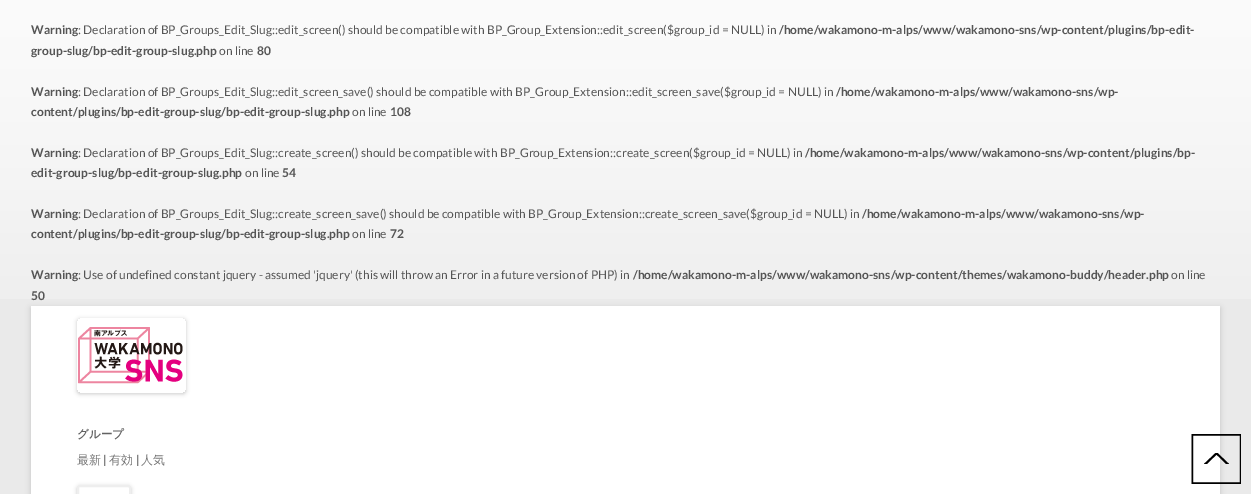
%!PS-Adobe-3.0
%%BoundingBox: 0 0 1251 494
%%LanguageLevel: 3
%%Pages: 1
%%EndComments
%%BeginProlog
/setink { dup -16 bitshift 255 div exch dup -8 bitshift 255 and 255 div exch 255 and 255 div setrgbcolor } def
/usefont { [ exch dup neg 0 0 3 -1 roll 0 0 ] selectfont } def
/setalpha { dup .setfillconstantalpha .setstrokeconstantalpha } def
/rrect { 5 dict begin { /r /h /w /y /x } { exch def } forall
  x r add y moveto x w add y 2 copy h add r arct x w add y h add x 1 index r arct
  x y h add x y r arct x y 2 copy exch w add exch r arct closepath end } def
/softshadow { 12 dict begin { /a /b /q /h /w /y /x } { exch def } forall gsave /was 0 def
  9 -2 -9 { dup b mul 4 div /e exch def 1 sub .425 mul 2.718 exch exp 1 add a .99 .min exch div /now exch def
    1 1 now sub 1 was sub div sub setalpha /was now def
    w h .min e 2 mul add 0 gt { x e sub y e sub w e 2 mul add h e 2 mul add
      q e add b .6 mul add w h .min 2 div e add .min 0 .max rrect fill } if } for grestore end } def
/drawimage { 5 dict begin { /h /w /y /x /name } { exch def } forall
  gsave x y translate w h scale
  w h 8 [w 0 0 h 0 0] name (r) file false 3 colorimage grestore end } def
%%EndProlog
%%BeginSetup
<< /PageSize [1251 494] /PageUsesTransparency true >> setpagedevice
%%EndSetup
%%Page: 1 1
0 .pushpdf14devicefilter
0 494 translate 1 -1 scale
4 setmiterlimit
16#EAEAEA setink
0 0 1251 494 rectfill
(img1.raw) 0 0 1251 299 drawimage
/Lato-Bold 12 usefont
16#555555 setink
31 34 moveto (Warning) show
/Lato-Regular 12 usefont
78 34 moveto (: Declaration of BP_Groups_Edit_Slug::edit_screen\(\) should be compatible with BP_Group_Extension::edit_screen\($group_id = NULL\) in) show
/Lato-Bold 12 usefont
779 34 moveto (/home/wakamono-m-alps/www/wakamono-sns/wp-content/plugins/bp-edit-) show
31 55 moveto (group-slug/bp-edit-group-slug.php) show
/Lato-Regular 12 usefont
219 55 moveto (on line) show
/Lato-Bold 12 usefont
257 55 moveto (80) show
31 96 moveto (Warning) show
/Lato-Regular 12 usefont
78 96 moveto (: Declaration of BP_Groups_Edit_Slug::edit_screen_save\(\) should be compatible with BP_Group_Extension::edit_screen_save\($group_id = NULL\) in) show
/Lato-Bold 12 usefont
836 96 moveto (/home/wakamono-m-alps/www/wakamono-sns/wp-) show
31 116 moveto (content/plugins/bp-edit-group-slug/bp-edit-group-slug.php) show
/Lato-Regular 12 usefont
352 116 moveto (on line) show
/Lato-Bold 12 usefont
390 116 moveto (108) show
31 157 moveto (Warning) show
/Lato-Regular 12 usefont
78 157 moveto (: Declaration of BP_Groups_Edit_Slug::create_screen\(\) should be compatible with BP_Group_Extension::create_screen\($group_id = NULL\) in) show
/Lato-Bold 12 usefont
805 157 moveto (/home/wakamono-m-alps/www/wakamono-sns/wp-content/plugins/bp-) show
31 177 moveto (edit-group-slug/bp-edit-group-slug.php) show
/Lato-Regular 12 usefont
245 177 moveto (on line) show
/Lato-Bold 12 usefont
282 177 moveto (54) show
31 218 moveto (Warning) show
/Lato-Regular 12 usefont
78 218 moveto (: Declaration of BP_Groups_Edit_Slug::create_screen_save\(\) should be compatible with BP_Group_Extension::create_screen_save\($group_id = NULL\) in) show
/Lato-Bold 12 usefont
862 218 moveto (/home/wakamono-m-alps/www/wakamono-sns/wp-) show
31 238 moveto (content/plugins/bp-edit-group-slug/bp-edit-group-slug.php) show
/Lato-Regular 12 usefont
352 238 moveto (on line) show
/Lato-Bold 12 usefont
390 238 moveto (72) show
31 279 moveto (Warning) show
/Lato-Regular 12 usefont
78 279 moveto (: Use of undefined constant jquery - assumed 'jquery' \(this will throw an Error in a future version of PHP\) in) show
/Lato-Bold 12 usefont
633 279 moveto (/home/wakamono-m-alps/www/wakamono-sns/wp-content/themes/wakamono-buddy/header.php) show
/Lato-Regular 12 usefont
1171 279 moveto (on line) show
/Lato-Bold 12 usefont
31 300 moveto (50) show
16#646464 setink
31 308 1189 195 0 3 0.3 softshadow
16#FFFFFF setink
31 306 1189 188 rectfill
gsave
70 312 moveto 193 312 lineto 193 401 lineto 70 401 lineto closepath 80 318 moveto 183 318 lineto 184.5 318 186 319.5 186 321 curveto 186 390 lineto 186 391.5 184.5 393 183 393 curveto 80 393 lineto 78.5 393 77 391.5 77 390 curveto 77 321 lineto 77 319.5 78.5 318 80 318 curveto closepath eoclip newpath
16#000000 setink
77 319 109 75 3 2 0.2 softshadow
grestore
(img2.raw) 78 327 105 57 drawimage
/WenQuanYiZenHei-Bold 11.5 usefont
16#636363 setink
77 438 moveto (グループ) show
/WenQuanYiZenHei-Medium 12 usefont
16#757575 setink
77 464 moveto (最新) show
/Lato-Regular 12 usefont
16#555555 setink
103 464 moveto (|) show
/WenQuanYiZenHei-Medium 12 usefont
16#757575 setink
109 464 moveto (有効) show
/Lato-Regular 12 usefont
16#555555 setink
136 464 moveto (|) show
/WenQuanYiZenHei-Medium 12 usefont
16#757575 setink
141 464 moveto (人気) show
gsave
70 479 moveto 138 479 lineto 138 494 lineto 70 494 lineto closepath 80 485 moveto 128 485 lineto 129.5 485 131 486.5 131 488 curveto 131 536 lineto 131 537.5 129.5 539 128 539 curveto 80 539 lineto 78.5 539 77 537.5 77 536 curveto 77 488 lineto 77 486.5 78.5 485 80 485 curveto closepath eoclip newpath
16#000000 setink
77 486 54 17 3 2 0.2 softshadow
grestore
16#EEEEEE setink
2 setlinewidth
78 486 52 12 2 rrect stroke
(img3.raw) 1191 434 50 50 drawimage
.poppdf14devicefilter showpage
%%EOF
